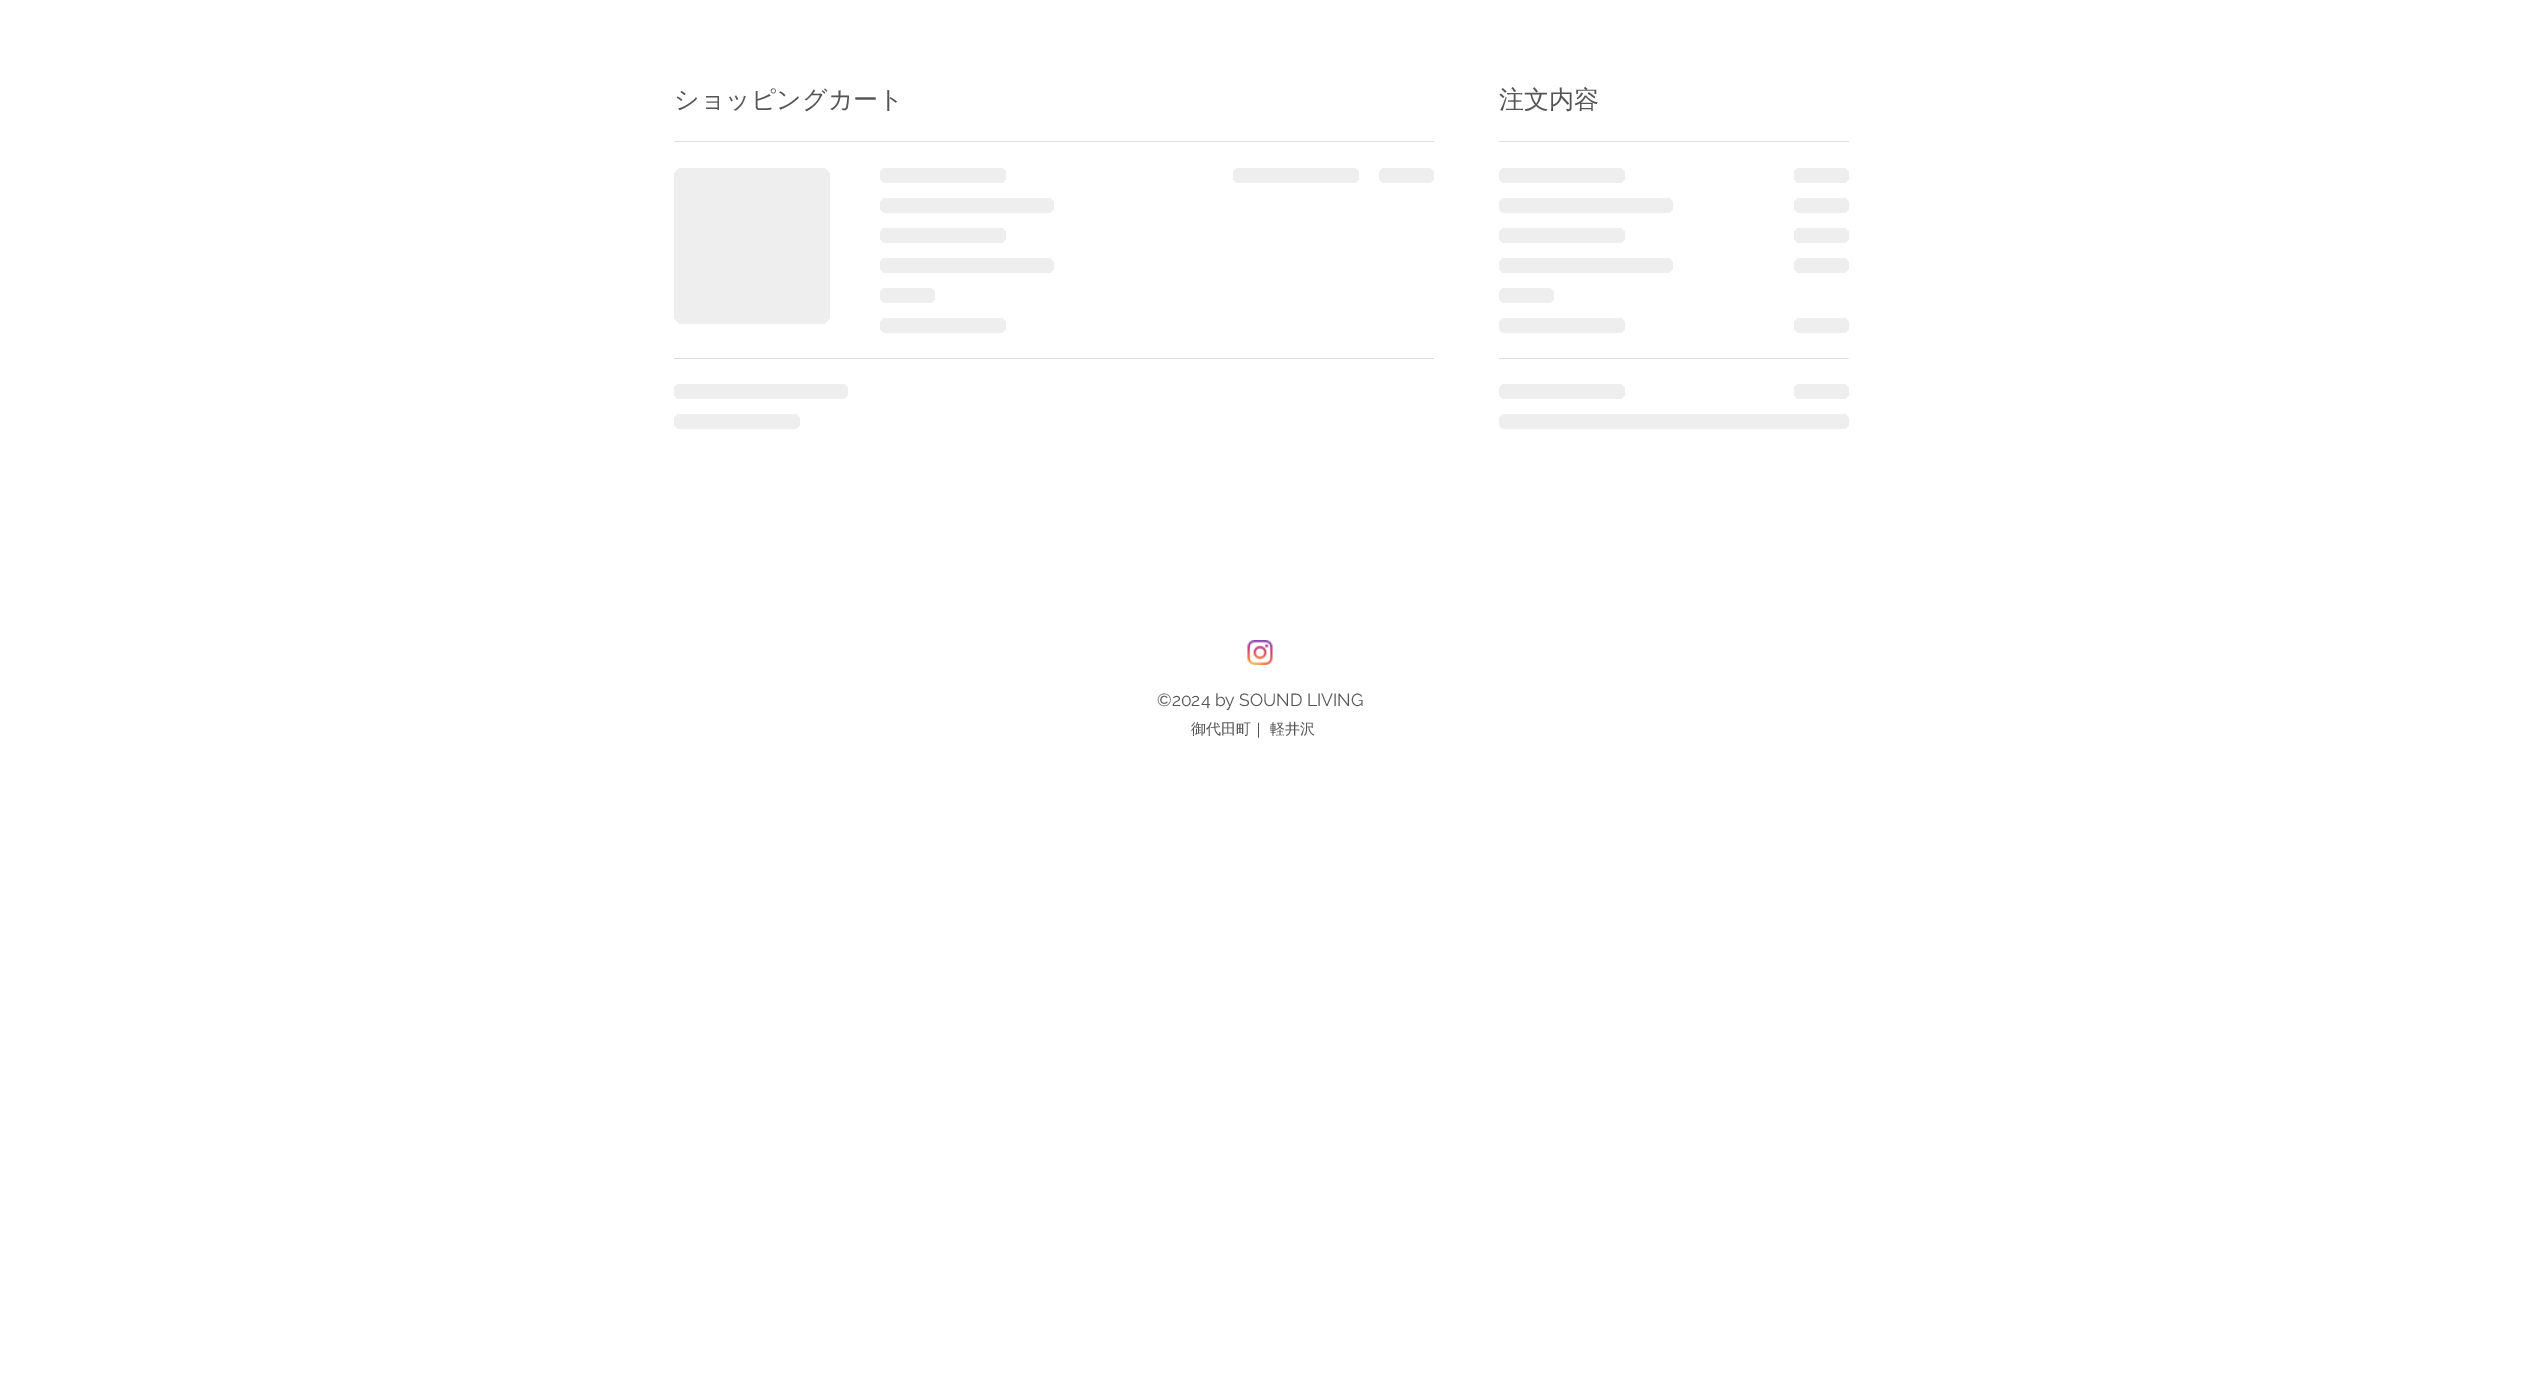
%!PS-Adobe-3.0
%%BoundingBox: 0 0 2522 1399
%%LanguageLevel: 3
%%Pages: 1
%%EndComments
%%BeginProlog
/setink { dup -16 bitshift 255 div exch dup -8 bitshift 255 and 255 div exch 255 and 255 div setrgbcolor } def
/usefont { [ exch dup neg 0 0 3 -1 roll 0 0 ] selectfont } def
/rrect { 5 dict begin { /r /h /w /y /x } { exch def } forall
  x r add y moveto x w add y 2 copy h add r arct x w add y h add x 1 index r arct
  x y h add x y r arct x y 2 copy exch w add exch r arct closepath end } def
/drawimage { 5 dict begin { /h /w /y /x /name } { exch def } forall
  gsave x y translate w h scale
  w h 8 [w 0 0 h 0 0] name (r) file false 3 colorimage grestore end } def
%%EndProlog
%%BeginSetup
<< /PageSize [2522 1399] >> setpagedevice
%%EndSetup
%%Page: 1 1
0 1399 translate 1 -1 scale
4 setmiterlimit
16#FFFFFF setink
0 0 2522 1399 rectfill
16#DDDDDD setink
674 141 760 1 rectfill
/WenQuanYiZenHei-Medium 25 usefont
16#555555 setink
674 108 moveto (ショッピングカート) show
gsave 674 168 156 156 10 rrect clip newpath
<< /ShadingType 2 /ColorSpace /DeviceRGB /Coords [674 246 1299 246] /Extend [true true] /Function << /FunctionType 3 /Domain [0 1] /Functions [<< /FunctionType 2 /Domain [0 1] /C0 [0.933 0.933 0.933] /C1 [0.933 0.933 0.933] /N 1 >> << /FunctionType 2 /Domain [0 1] /C0 [0.933 0.933 0.933] /C1 [0.867 0.867 0.867] /N 1 >> << /FunctionType 2 /Domain [0 1] /C0 [0.867 0.867 0.867] /C1 [0.933 0.933 0.933] /N 1 >> << /FunctionType 2 /Domain [0 1] /C0 [0.933 0.933 0.933] /C1 [0.933 0.933 0.933] /N 1 >>] /Bounds [0.25 0.37 0.63] /Encode [0 1 0 1 0 1 0 1] >> >> shfill grestore
gsave 880 168 126 15 7.5 rrect clip newpath
<< /ShadingType 2 /ColorSpace /DeviceRGB /Coords [880 175 1385 175] /Extend [true true] /Function << /FunctionType 3 /Domain [0 1] /Functions [<< /FunctionType 2 /Domain [0 1] /C0 [0.933 0.933 0.933] /C1 [0.933 0.933 0.933] /N 1 >> << /FunctionType 2 /Domain [0 1] /C0 [0.933 0.933 0.933] /C1 [0.867 0.867 0.867] /N 1 >> << /FunctionType 2 /Domain [0 1] /C0 [0.867 0.867 0.867] /C1 [0.933 0.933 0.933] /N 1 >> << /FunctionType 2 /Domain [0 1] /C0 [0.933 0.933 0.933] /C1 [0.933 0.933 0.933] /N 1 >>] /Bounds [0.25 0.37 0.63] /Encode [0 1 0 1 0 1 0 1] >> >> shfill grestore
gsave 880 198 174 15 7.5 rrect clip newpath
<< /ShadingType 2 /ColorSpace /DeviceRGB /Coords [880 205 1575 205] /Extend [true true] /Function << /FunctionType 3 /Domain [0 1] /Functions [<< /FunctionType 2 /Domain [0 1] /C0 [0.933 0.933 0.933] /C1 [0.933 0.933 0.933] /N 1 >> << /FunctionType 2 /Domain [0 1] /C0 [0.933 0.933 0.933] /C1 [0.867 0.867 0.867] /N 1 >> << /FunctionType 2 /Domain [0 1] /C0 [0.867 0.867 0.867] /C1 [0.933 0.933 0.933] /N 1 >> << /FunctionType 2 /Domain [0 1] /C0 [0.933 0.933 0.933] /C1 [0.933 0.933 0.933] /N 1 >>] /Bounds [0.25 0.37 0.63] /Encode [0 1 0 1 0 1 0 1] >> >> shfill grestore
gsave 880 228 126 15 7.5 rrect clip newpath
<< /ShadingType 2 /ColorSpace /DeviceRGB /Coords [880 235 1385 235] /Extend [true true] /Function << /FunctionType 3 /Domain [0 1] /Functions [<< /FunctionType 2 /Domain [0 1] /C0 [0.933 0.933 0.933] /C1 [0.933 0.933 0.933] /N 1 >> << /FunctionType 2 /Domain [0 1] /C0 [0.933 0.933 0.933] /C1 [0.867 0.867 0.867] /N 1 >> << /FunctionType 2 /Domain [0 1] /C0 [0.867 0.867 0.867] /C1 [0.933 0.933 0.933] /N 1 >> << /FunctionType 2 /Domain [0 1] /C0 [0.933 0.933 0.933] /C1 [0.933 0.933 0.933] /N 1 >>] /Bounds [0.25 0.37 0.63] /Encode [0 1 0 1 0 1 0 1] >> >> shfill grestore
gsave 880 258 174 15 7.5 rrect clip newpath
<< /ShadingType 2 /ColorSpace /DeviceRGB /Coords [880 265 1575 265] /Extend [true true] /Function << /FunctionType 3 /Domain [0 1] /Functions [<< /FunctionType 2 /Domain [0 1] /C0 [0.933 0.933 0.933] /C1 [0.933 0.933 0.933] /N 1 >> << /FunctionType 2 /Domain [0 1] /C0 [0.933 0.933 0.933] /C1 [0.867 0.867 0.867] /N 1 >> << /FunctionType 2 /Domain [0 1] /C0 [0.867 0.867 0.867] /C1 [0.933 0.933 0.933] /N 1 >> << /FunctionType 2 /Domain [0 1] /C0 [0.933 0.933 0.933] /C1 [0.933 0.933 0.933] /N 1 >>] /Bounds [0.25 0.37 0.63] /Encode [0 1 0 1 0 1 0 1] >> >> shfill grestore
gsave 880 288 55 15 7.5 rrect clip newpath
<< /ShadingType 2 /ColorSpace /DeviceRGB /Coords [880 295 1100 295] /Extend [true true] /Function << /FunctionType 3 /Domain [0 1] /Functions [<< /FunctionType 2 /Domain [0 1] /C0 [0.933 0.933 0.933] /C1 [0.933 0.933 0.933] /N 1 >> << /FunctionType 2 /Domain [0 1] /C0 [0.933 0.933 0.933] /C1 [0.867 0.867 0.867] /N 1 >> << /FunctionType 2 /Domain [0 1] /C0 [0.867 0.867 0.867] /C1 [0.933 0.933 0.933] /N 1 >> << /FunctionType 2 /Domain [0 1] /C0 [0.933 0.933 0.933] /C1 [0.933 0.933 0.933] /N 1 >>] /Bounds [0.25 0.37 0.63] /Encode [0 1 0 1 0 1 0 1] >> >> shfill grestore
gsave 880 318 126 15 7.5 rrect clip newpath
<< /ShadingType 2 /ColorSpace /DeviceRGB /Coords [880 325 1385 325] /Extend [true true] /Function << /FunctionType 3 /Domain [0 1] /Functions [<< /FunctionType 2 /Domain [0 1] /C0 [0.933 0.933 0.933] /C1 [0.933 0.933 0.933] /N 1 >> << /FunctionType 2 /Domain [0 1] /C0 [0.933 0.933 0.933] /C1 [0.867 0.867 0.867] /N 1 >> << /FunctionType 2 /Domain [0 1] /C0 [0.867 0.867 0.867] /C1 [0.933 0.933 0.933] /N 1 >> << /FunctionType 2 /Domain [0 1] /C0 [0.933 0.933 0.933] /C1 [0.933 0.933 0.933] /N 1 >>] /Bounds [0.25 0.37 0.63] /Encode [0 1 0 1 0 1 0 1] >> >> shfill grestore
gsave 1233 168 126 15 7.5 rrect clip newpath
<< /ShadingType 2 /ColorSpace /DeviceRGB /Coords [1233 175 1738 175] /Extend [true true] /Function << /FunctionType 3 /Domain [0 1] /Functions [<< /FunctionType 2 /Domain [0 1] /C0 [0.933 0.933 0.933] /C1 [0.933 0.933 0.933] /N 1 >> << /FunctionType 2 /Domain [0 1] /C0 [0.933 0.933 0.933] /C1 [0.867 0.867 0.867] /N 1 >> << /FunctionType 2 /Domain [0 1] /C0 [0.867 0.867 0.867] /C1 [0.933 0.933 0.933] /N 1 >> << /FunctionType 2 /Domain [0 1] /C0 [0.933 0.933 0.933] /C1 [0.933 0.933 0.933] /N 1 >>] /Bounds [0.25 0.37 0.63] /Encode [0 1 0 1 0 1 0 1] >> >> shfill grestore
gsave 1379 168 55 15 7.5 rrect clip newpath
<< /ShadingType 2 /ColorSpace /DeviceRGB /Coords [1379 175 1599 175] /Extend [true true] /Function << /FunctionType 3 /Domain [0 1] /Functions [<< /FunctionType 2 /Domain [0 1] /C0 [0.933 0.933 0.933] /C1 [0.933 0.933 0.933] /N 1 >> << /FunctionType 2 /Domain [0 1] /C0 [0.933 0.933 0.933] /C1 [0.867 0.867 0.867] /N 1 >> << /FunctionType 2 /Domain [0 1] /C0 [0.867 0.867 0.867] /C1 [0.933 0.933 0.933] /N 1 >> << /FunctionType 2 /Domain [0 1] /C0 [0.933 0.933 0.933] /C1 [0.933 0.933 0.933] /N 1 >>] /Bounds [0.25 0.37 0.63] /Encode [0 1 0 1 0 1 0 1] >> >> shfill grestore
16#DDDDDD setink
674 358 760 1 rectfill
gsave 674 384 174 15 7.5 rrect clip newpath
<< /ShadingType 2 /ColorSpace /DeviceRGB /Coords [674 391 1369 391] /Extend [true true] /Function << /FunctionType 3 /Domain [0 1] /Functions [<< /FunctionType 2 /Domain [0 1] /C0 [0.933 0.933 0.933] /C1 [0.933 0.933 0.933] /N 1 >> << /FunctionType 2 /Domain [0 1] /C0 [0.933 0.933 0.933] /C1 [0.867 0.867 0.867] /N 1 >> << /FunctionType 2 /Domain [0 1] /C0 [0.867 0.867 0.867] /C1 [0.933 0.933 0.933] /N 1 >> << /FunctionType 2 /Domain [0 1] /C0 [0.933 0.933 0.933] /C1 [0.933 0.933 0.933] /N 1 >>] /Bounds [0.25 0.37 0.63] /Encode [0 1 0 1 0 1 0 1] >> >> shfill grestore
gsave 674 414 126 15 7.5 rrect clip newpath
<< /ShadingType 2 /ColorSpace /DeviceRGB /Coords [674 421 1179 421] /Extend [true true] /Function << /FunctionType 3 /Domain [0 1] /Functions [<< /FunctionType 2 /Domain [0 1] /C0 [0.933 0.933 0.933] /C1 [0.933 0.933 0.933] /N 1 >> << /FunctionType 2 /Domain [0 1] /C0 [0.933 0.933 0.933] /C1 [0.867 0.867 0.867] /N 1 >> << /FunctionType 2 /Domain [0 1] /C0 [0.867 0.867 0.867] /C1 [0.933 0.933 0.933] /N 1 >> << /FunctionType 2 /Domain [0 1] /C0 [0.933 0.933 0.933] /C1 [0.933 0.933 0.933] /N 1 >>] /Bounds [0.25 0.37 0.63] /Encode [0 1 0 1 0 1 0 1] >> >> shfill grestore
1499 141 350 1 rectfill
16#555555 setink
1499 108 moveto (注文内容) show
gsave 1499 168 126 15 7.5 rrect clip newpath
<< /ShadingType 2 /ColorSpace /DeviceRGB /Coords [1499 175 2004 175] /Extend [true true] /Function << /FunctionType 3 /Domain [0 1] /Functions [<< /FunctionType 2 /Domain [0 1] /C0 [0.933 0.933 0.933] /C1 [0.933 0.933 0.933] /N 1 >> << /FunctionType 2 /Domain [0 1] /C0 [0.933 0.933 0.933] /C1 [0.867 0.867 0.867] /N 1 >> << /FunctionType 2 /Domain [0 1] /C0 [0.867 0.867 0.867] /C1 [0.933 0.933 0.933] /N 1 >> << /FunctionType 2 /Domain [0 1] /C0 [0.933 0.933 0.933] /C1 [0.933 0.933 0.933] /N 1 >>] /Bounds [0.25 0.37 0.63] /Encode [0 1 0 1 0 1 0 1] >> >> shfill grestore
gsave 1794 168 55 15 7.5 rrect clip newpath
<< /ShadingType 2 /ColorSpace /DeviceRGB /Coords [1794 175 2014 175] /Extend [true true] /Function << /FunctionType 3 /Domain [0 1] /Functions [<< /FunctionType 2 /Domain [0 1] /C0 [0.933 0.933 0.933] /C1 [0.933 0.933 0.933] /N 1 >> << /FunctionType 2 /Domain [0 1] /C0 [0.933 0.933 0.933] /C1 [0.867 0.867 0.867] /N 1 >> << /FunctionType 2 /Domain [0 1] /C0 [0.867 0.867 0.867] /C1 [0.933 0.933 0.933] /N 1 >> << /FunctionType 2 /Domain [0 1] /C0 [0.933 0.933 0.933] /C1 [0.933 0.933 0.933] /N 1 >>] /Bounds [0.25 0.37 0.63] /Encode [0 1 0 1 0 1 0 1] >> >> shfill grestore
gsave 1499 198 174 15 7.5 rrect clip newpath
<< /ShadingType 2 /ColorSpace /DeviceRGB /Coords [1499 205 2194 205] /Extend [true true] /Function << /FunctionType 3 /Domain [0 1] /Functions [<< /FunctionType 2 /Domain [0 1] /C0 [0.933 0.933 0.933] /C1 [0.933 0.933 0.933] /N 1 >> << /FunctionType 2 /Domain [0 1] /C0 [0.933 0.933 0.933] /C1 [0.867 0.867 0.867] /N 1 >> << /FunctionType 2 /Domain [0 1] /C0 [0.867 0.867 0.867] /C1 [0.933 0.933 0.933] /N 1 >> << /FunctionType 2 /Domain [0 1] /C0 [0.933 0.933 0.933] /C1 [0.933 0.933 0.933] /N 1 >>] /Bounds [0.25 0.37 0.63] /Encode [0 1 0 1 0 1 0 1] >> >> shfill grestore
gsave 1794 198 55 15 7.5 rrect clip newpath
<< /ShadingType 2 /ColorSpace /DeviceRGB /Coords [1794 205 2014 205] /Extend [true true] /Function << /FunctionType 3 /Domain [0 1] /Functions [<< /FunctionType 2 /Domain [0 1] /C0 [0.933 0.933 0.933] /C1 [0.933 0.933 0.933] /N 1 >> << /FunctionType 2 /Domain [0 1] /C0 [0.933 0.933 0.933] /C1 [0.867 0.867 0.867] /N 1 >> << /FunctionType 2 /Domain [0 1] /C0 [0.867 0.867 0.867] /C1 [0.933 0.933 0.933] /N 1 >> << /FunctionType 2 /Domain [0 1] /C0 [0.933 0.933 0.933] /C1 [0.933 0.933 0.933] /N 1 >>] /Bounds [0.25 0.37 0.63] /Encode [0 1 0 1 0 1 0 1] >> >> shfill grestore
gsave 1499 228 126 15 7.5 rrect clip newpath
<< /ShadingType 2 /ColorSpace /DeviceRGB /Coords [1499 235 2004 235] /Extend [true true] /Function << /FunctionType 3 /Domain [0 1] /Functions [<< /FunctionType 2 /Domain [0 1] /C0 [0.933 0.933 0.933] /C1 [0.933 0.933 0.933] /N 1 >> << /FunctionType 2 /Domain [0 1] /C0 [0.933 0.933 0.933] /C1 [0.867 0.867 0.867] /N 1 >> << /FunctionType 2 /Domain [0 1] /C0 [0.867 0.867 0.867] /C1 [0.933 0.933 0.933] /N 1 >> << /FunctionType 2 /Domain [0 1] /C0 [0.933 0.933 0.933] /C1 [0.933 0.933 0.933] /N 1 >>] /Bounds [0.25 0.37 0.63] /Encode [0 1 0 1 0 1 0 1] >> >> shfill grestore
gsave 1794 228 55 15 7.5 rrect clip newpath
<< /ShadingType 2 /ColorSpace /DeviceRGB /Coords [1794 235 2014 235] /Extend [true true] /Function << /FunctionType 3 /Domain [0 1] /Functions [<< /FunctionType 2 /Domain [0 1] /C0 [0.933 0.933 0.933] /C1 [0.933 0.933 0.933] /N 1 >> << /FunctionType 2 /Domain [0 1] /C0 [0.933 0.933 0.933] /C1 [0.867 0.867 0.867] /N 1 >> << /FunctionType 2 /Domain [0 1] /C0 [0.867 0.867 0.867] /C1 [0.933 0.933 0.933] /N 1 >> << /FunctionType 2 /Domain [0 1] /C0 [0.933 0.933 0.933] /C1 [0.933 0.933 0.933] /N 1 >>] /Bounds [0.25 0.37 0.63] /Encode [0 1 0 1 0 1 0 1] >> >> shfill grestore
gsave 1499 258 174 15 7.5 rrect clip newpath
<< /ShadingType 2 /ColorSpace /DeviceRGB /Coords [1499 265 2194 265] /Extend [true true] /Function << /FunctionType 3 /Domain [0 1] /Functions [<< /FunctionType 2 /Domain [0 1] /C0 [0.933 0.933 0.933] /C1 [0.933 0.933 0.933] /N 1 >> << /FunctionType 2 /Domain [0 1] /C0 [0.933 0.933 0.933] /C1 [0.867 0.867 0.867] /N 1 >> << /FunctionType 2 /Domain [0 1] /C0 [0.867 0.867 0.867] /C1 [0.933 0.933 0.933] /N 1 >> << /FunctionType 2 /Domain [0 1] /C0 [0.933 0.933 0.933] /C1 [0.933 0.933 0.933] /N 1 >>] /Bounds [0.25 0.37 0.63] /Encode [0 1 0 1 0 1 0 1] >> >> shfill grestore
gsave 1794 258 55 15 7.5 rrect clip newpath
<< /ShadingType 2 /ColorSpace /DeviceRGB /Coords [1794 265 2014 265] /Extend [true true] /Function << /FunctionType 3 /Domain [0 1] /Functions [<< /FunctionType 2 /Domain [0 1] /C0 [0.933 0.933 0.933] /C1 [0.933 0.933 0.933] /N 1 >> << /FunctionType 2 /Domain [0 1] /C0 [0.933 0.933 0.933] /C1 [0.867 0.867 0.867] /N 1 >> << /FunctionType 2 /Domain [0 1] /C0 [0.867 0.867 0.867] /C1 [0.933 0.933 0.933] /N 1 >> << /FunctionType 2 /Domain [0 1] /C0 [0.933 0.933 0.933] /C1 [0.933 0.933 0.933] /N 1 >>] /Bounds [0.25 0.37 0.63] /Encode [0 1 0 1 0 1 0 1] >> >> shfill grestore
gsave 1499 288 55 15 7.5 rrect clip newpath
<< /ShadingType 2 /ColorSpace /DeviceRGB /Coords [1499 295 1719 295] /Extend [true true] /Function << /FunctionType 3 /Domain [0 1] /Functions [<< /FunctionType 2 /Domain [0 1] /C0 [0.933 0.933 0.933] /C1 [0.933 0.933 0.933] /N 1 >> << /FunctionType 2 /Domain [0 1] /C0 [0.933 0.933 0.933] /C1 [0.867 0.867 0.867] /N 1 >> << /FunctionType 2 /Domain [0 1] /C0 [0.867 0.867 0.867] /C1 [0.933 0.933 0.933] /N 1 >> << /FunctionType 2 /Domain [0 1] /C0 [0.933 0.933 0.933] /C1 [0.933 0.933 0.933] /N 1 >>] /Bounds [0.25 0.37 0.63] /Encode [0 1 0 1 0 1 0 1] >> >> shfill grestore
gsave 1499 318 126 15 7.5 rrect clip newpath
<< /ShadingType 2 /ColorSpace /DeviceRGB /Coords [1499 325 2004 325] /Extend [true true] /Function << /FunctionType 3 /Domain [0 1] /Functions [<< /FunctionType 2 /Domain [0 1] /C0 [0.933 0.933 0.933] /C1 [0.933 0.933 0.933] /N 1 >> << /FunctionType 2 /Domain [0 1] /C0 [0.933 0.933 0.933] /C1 [0.867 0.867 0.867] /N 1 >> << /FunctionType 2 /Domain [0 1] /C0 [0.867 0.867 0.867] /C1 [0.933 0.933 0.933] /N 1 >> << /FunctionType 2 /Domain [0 1] /C0 [0.933 0.933 0.933] /C1 [0.933 0.933 0.933] /N 1 >>] /Bounds [0.25 0.37 0.63] /Encode [0 1 0 1 0 1 0 1] >> >> shfill grestore
gsave 1794 318 55 15 7.5 rrect clip newpath
<< /ShadingType 2 /ColorSpace /DeviceRGB /Coords [1794 325 2014 325] /Extend [true true] /Function << /FunctionType 3 /Domain [0 1] /Functions [<< /FunctionType 2 /Domain [0 1] /C0 [0.933 0.933 0.933] /C1 [0.933 0.933 0.933] /N 1 >> << /FunctionType 2 /Domain [0 1] /C0 [0.933 0.933 0.933] /C1 [0.867 0.867 0.867] /N 1 >> << /FunctionType 2 /Domain [0 1] /C0 [0.867 0.867 0.867] /C1 [0.933 0.933 0.933] /N 1 >> << /FunctionType 2 /Domain [0 1] /C0 [0.933 0.933 0.933] /C1 [0.933 0.933 0.933] /N 1 >>] /Bounds [0.25 0.37 0.63] /Encode [0 1 0 1 0 1 0 1] >> >> shfill grestore
16#DDDDDD setink
1499 358 350 1 rectfill
gsave 1499 384 126 15 7.5 rrect clip newpath
<< /ShadingType 2 /ColorSpace /DeviceRGB /Coords [1499 391 2004 391] /Extend [true true] /Function << /FunctionType 3 /Domain [0 1] /Functions [<< /FunctionType 2 /Domain [0 1] /C0 [0.933 0.933 0.933] /C1 [0.933 0.933 0.933] /N 1 >> << /FunctionType 2 /Domain [0 1] /C0 [0.933 0.933 0.933] /C1 [0.867 0.867 0.867] /N 1 >> << /FunctionType 2 /Domain [0 1] /C0 [0.867 0.867 0.867] /C1 [0.933 0.933 0.933] /N 1 >> << /FunctionType 2 /Domain [0 1] /C0 [0.933 0.933 0.933] /C1 [0.933 0.933 0.933] /N 1 >>] /Bounds [0.25 0.37 0.63] /Encode [0 1 0 1 0 1 0 1] >> >> shfill grestore
gsave 1794 384 55 15 7.5 rrect clip newpath
<< /ShadingType 2 /ColorSpace /DeviceRGB /Coords [1794 391 2014 391] /Extend [true true] /Function << /FunctionType 3 /Domain [0 1] /Functions [<< /FunctionType 2 /Domain [0 1] /C0 [0.933 0.933 0.933] /C1 [0.933 0.933 0.933] /N 1 >> << /FunctionType 2 /Domain [0 1] /C0 [0.933 0.933 0.933] /C1 [0.867 0.867 0.867] /N 1 >> << /FunctionType 2 /Domain [0 1] /C0 [0.867 0.867 0.867] /C1 [0.933 0.933 0.933] /N 1 >> << /FunctionType 2 /Domain [0 1] /C0 [0.933 0.933 0.933] /C1 [0.933 0.933 0.933] /N 1 >>] /Bounds [0.25 0.37 0.63] /Encode [0 1 0 1 0 1 0 1] >> >> shfill grestore
gsave 1499 414 350 15 7.5 rrect clip newpath
<< /ShadingType 2 /ColorSpace /DeviceRGB /Coords [1499 421 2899 421] /Extend [true true] /Function << /FunctionType 3 /Domain [0 1] /Functions [<< /FunctionType 2 /Domain [0 1] /C0 [0.933 0.933 0.933] /C1 [0.933 0.933 0.933] /N 1 >> << /FunctionType 2 /Domain [0 1] /C0 [0.933 0.933 0.933] /C1 [0.867 0.867 0.867] /N 1 >> << /FunctionType 2 /Domain [0 1] /C0 [0.867 0.867 0.867] /C1 [0.933 0.933 0.933] /N 1 >> << /FunctionType 2 /Domain [0 1] /C0 [0.933 0.933 0.933] /C1 [0.933 0.933 0.933] /N 1 >>] /Bounds [0.25 0.37 0.63] /Encode [0 1 0 1 0 1 0 1] >> >> shfill grestore
(img1.raw) 1247 640 26 25 drawimage
/Raleway-Regular 17.5 usefont
16#555555 setink
1157 706 moveto (©2024 by SOUND LIVING) show
/WenQuanYiZenHei-Medium 15 usefont
1191 734 moveto (御代田町｜ 軽井沢) show
showpage
%%EOF
